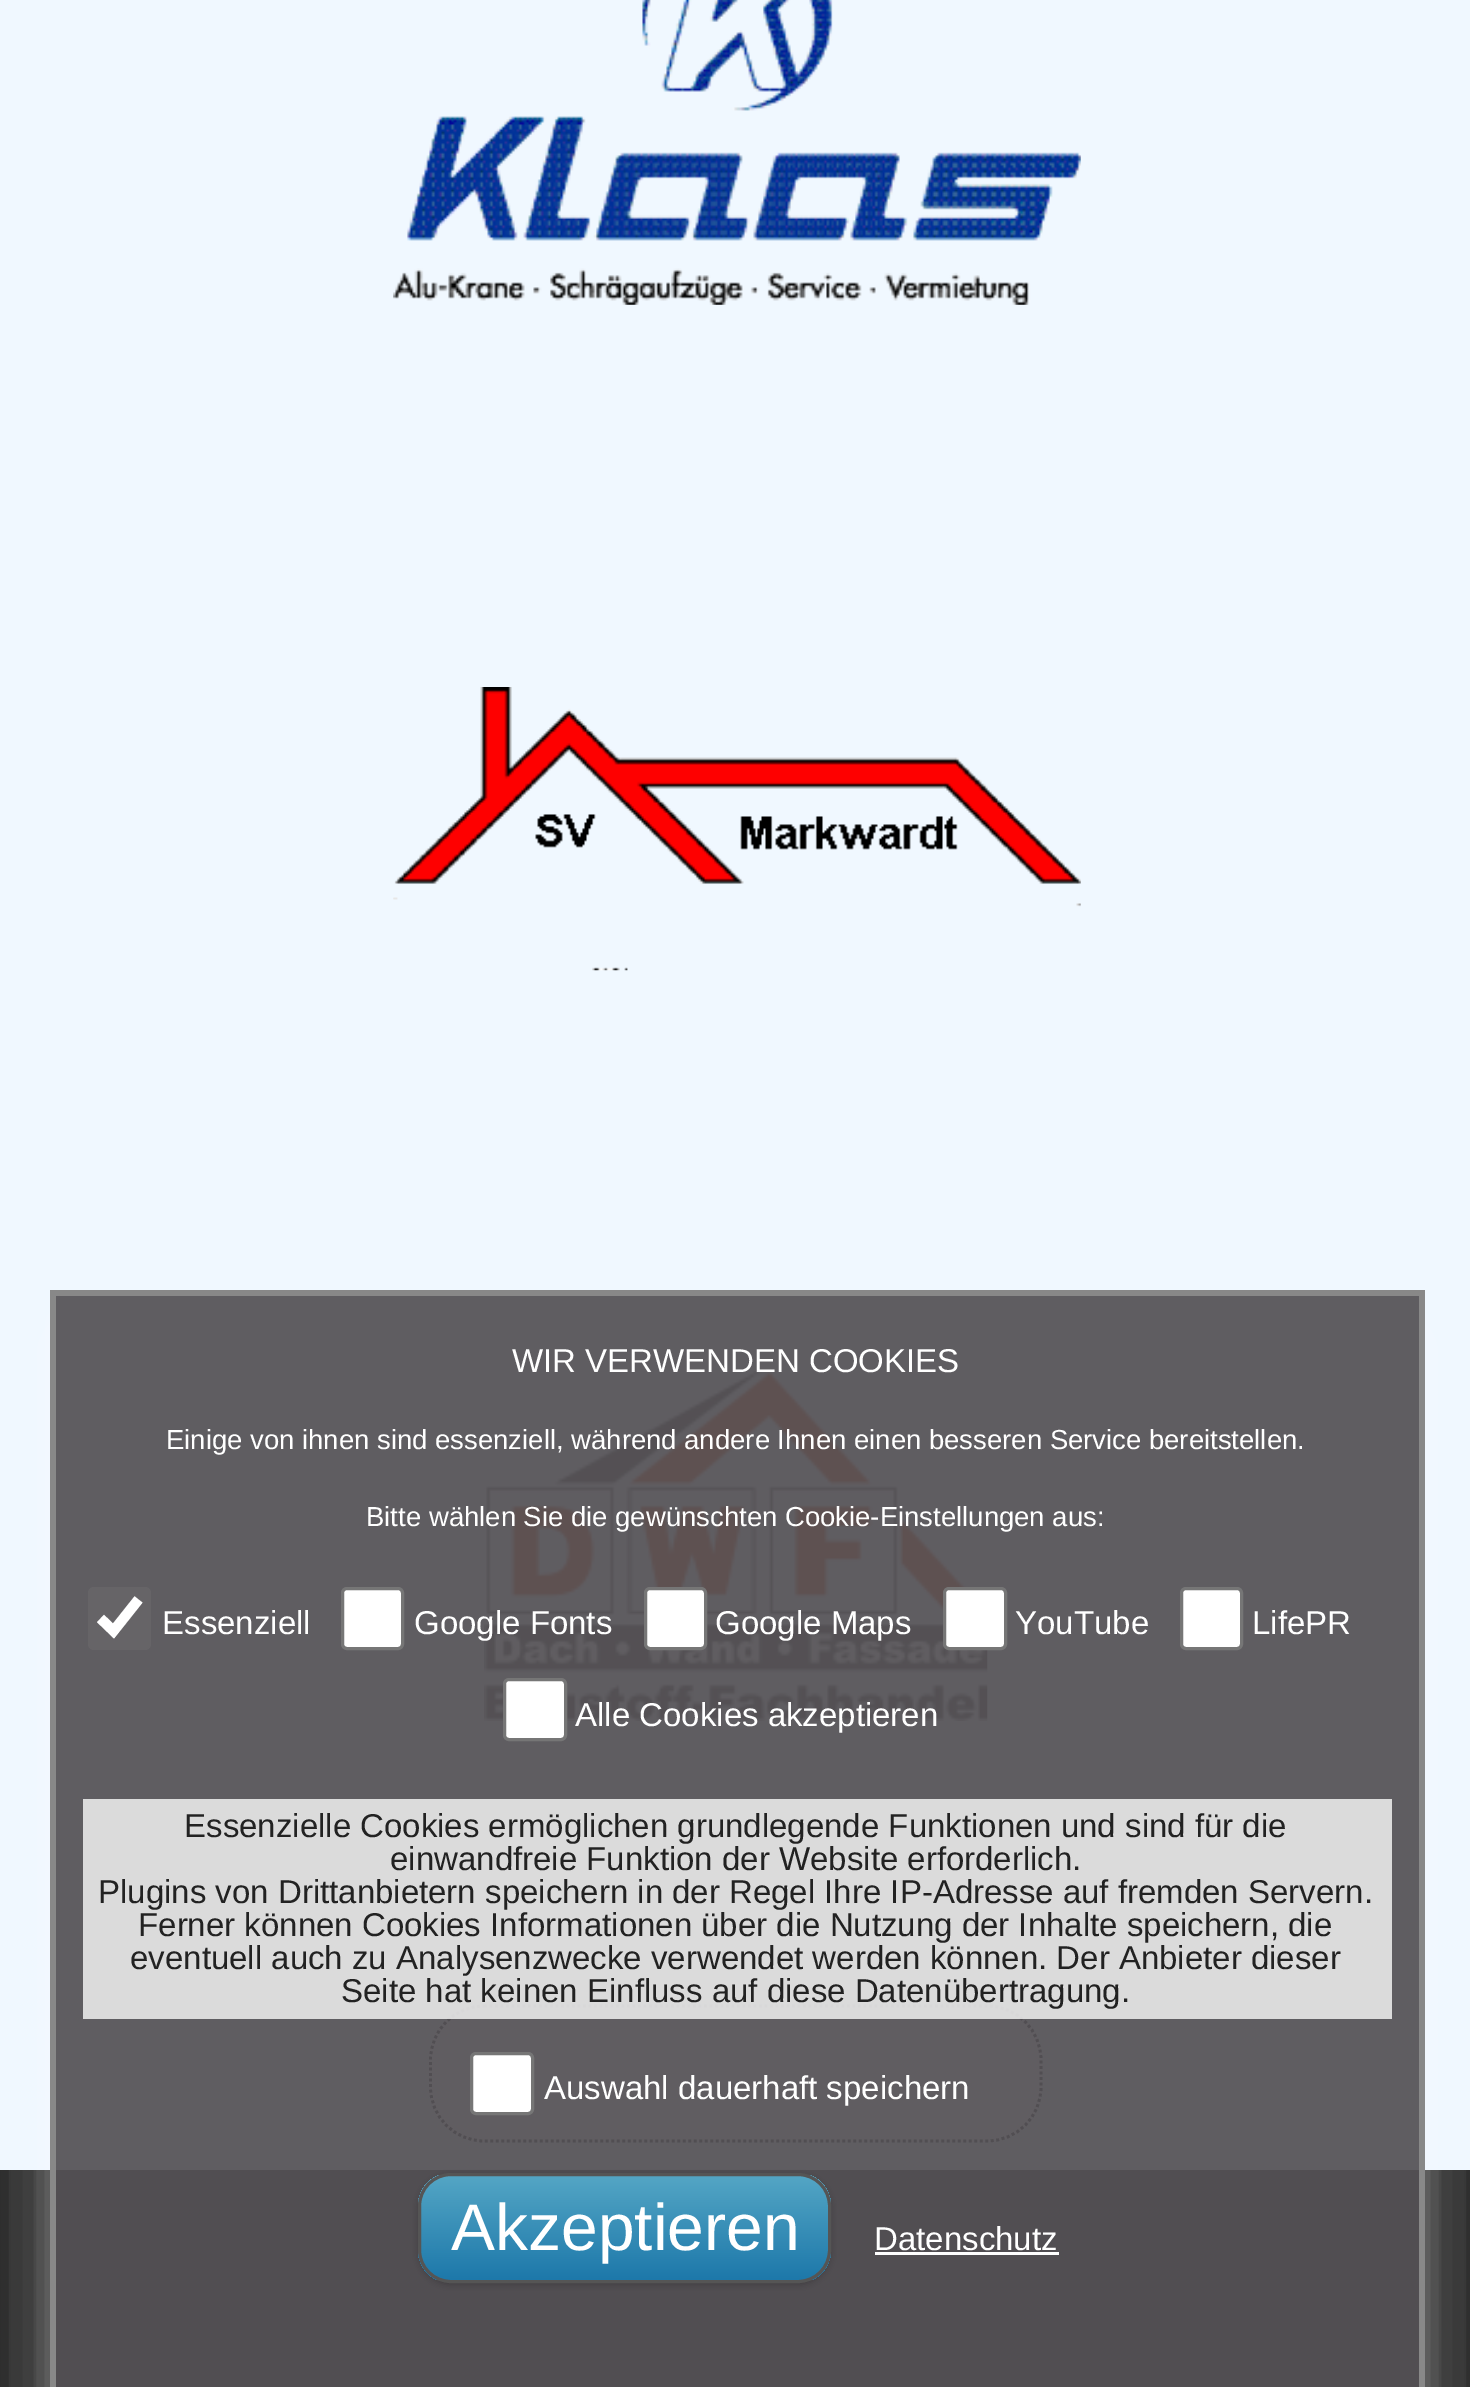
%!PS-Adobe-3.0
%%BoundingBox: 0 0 1470 2387
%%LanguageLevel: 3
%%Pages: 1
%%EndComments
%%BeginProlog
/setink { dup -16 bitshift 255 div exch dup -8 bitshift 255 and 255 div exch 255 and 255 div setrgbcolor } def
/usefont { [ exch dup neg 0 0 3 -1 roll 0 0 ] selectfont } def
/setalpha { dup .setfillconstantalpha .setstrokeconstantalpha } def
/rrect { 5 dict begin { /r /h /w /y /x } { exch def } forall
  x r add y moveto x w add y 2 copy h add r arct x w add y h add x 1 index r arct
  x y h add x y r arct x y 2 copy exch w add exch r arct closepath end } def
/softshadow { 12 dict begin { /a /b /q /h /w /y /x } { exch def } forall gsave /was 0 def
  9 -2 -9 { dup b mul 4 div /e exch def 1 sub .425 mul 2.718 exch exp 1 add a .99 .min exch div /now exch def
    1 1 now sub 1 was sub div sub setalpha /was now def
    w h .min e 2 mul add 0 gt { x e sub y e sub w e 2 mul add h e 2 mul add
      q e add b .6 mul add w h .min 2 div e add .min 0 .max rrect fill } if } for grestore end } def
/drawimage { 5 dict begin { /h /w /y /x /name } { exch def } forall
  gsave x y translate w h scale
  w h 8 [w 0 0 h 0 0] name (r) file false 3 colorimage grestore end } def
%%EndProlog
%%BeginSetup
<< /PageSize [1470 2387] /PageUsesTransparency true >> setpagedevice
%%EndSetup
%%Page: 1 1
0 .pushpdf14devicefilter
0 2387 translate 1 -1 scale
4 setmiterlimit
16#242424 setink
0 0 1470 2387 rectfill
16#F0F8FF setink
0 0 1470 2170 rectfill
(img1.raw) 393 0 688 305 drawimage
(img2.raw) 393 687 688 284 drawimage
(img3.raw) 484 1369 504 352 drawimage
16#FFFFFF setink
429 2005 613 137 55 rrect fill
16#242424 setink
2.8 setlinewidth
[2.75 2.75] 0 setdash
484 2006 moveto 987 2006 lineto 1017 2006 1041 2030 1041 2060 curveto 1041 2087 lineto 1041 2117 1017 2141 987 2141 curveto 484 2141 lineto 454.5 2141 430.5 2117 430.5 2087 curveto 430.5 2060 lineto 430.5 2030 454.5 2006 484 2006 curveto closepath stroke
gsave
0 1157 moveto 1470 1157 lineto 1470 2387 lineto 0 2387 lineto closepath 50 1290 moveto 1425 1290 lineto 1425 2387 lineto 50 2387 lineto closepath eoclip newpath
16#FAFAFA setink
50 1323 1375 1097 0 55 0.29 softshadow
grestore
gsave
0 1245 moveto 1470 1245 lineto 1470 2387 lineto 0 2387 lineto closepath 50 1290 moveto 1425 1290 lineto 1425 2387 lineto 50 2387 lineto closepath eoclip newpath
16#FAFAFA setink
50 1312 1375 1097 0 22 0.3 softshadow
grestore
0.93 setalpha
[
    [56 1296 1363 1091 16#545155]
] { aload pop setink rectfill } forall
1 setalpha
[
    [50 1290 1375 6 16#888888]
    [1419 1290 6 1097 16#888888]
    [50 1290 6 1097 16#888888]
] { aload pop setink rectfill } forall
/LiberationSans-Regular 33 usefont
16#FFFFFF setink
512 1372 moveto (WIR VERWENDEN COOKIES) show
/LiberationSans-Regular 27.5 usefont
166 1449 moveto (Einige von ihnen sind essenziell, während andere Ihnen einen besseren Service bereitstellen.) show
366 1526 moveto (Bitte wählen Sie die gewünschten Cookie-Einstellungen aus:) show
16#666467 setink
88 1587 63 63 6 rrect fill
16#FFFFFF setink
10.1 setlinewidth
[] 0 setdash
100.5 1618.5 moveto 113.5 1631 lineto 138.5 1599.5 lineto stroke
/LiberationSans-Regular 33 usefont
162 1634 moveto (Essenziell) show
342.5 1588.5 60 60 4.5 rrect gsave fill grestore
16#767676 setink
3 setlinewidth
stroke
16#FFFFFF setink
414 1634 moveto (Google Fonts) show
645.5 1588.5 60 60 4.5 rrect gsave fill grestore
16#767676 setink
stroke
16#FFFFFF setink
715 1634 moveto (Google Maps) show
944.5 1588.5 61 60 4.5 rrect gsave fill grestore
16#767676 setink
stroke
16#FFFFFF setink
1015 1634 moveto (YouTube) show
1181.5 1588.5 60 60 4.5 rrect gsave fill grestore
16#767676 setink
stroke
16#FFFFFF setink
1252 1634 moveto (LifePR) show
504.5 1679.5 61 60 4.5 rrect gsave fill grestore
16#767676 setink
stroke
16#FFFFFF setink
575 1726 moveto (Alle Cookies akzeptieren) show
0.8 setalpha
16#FAFAFA setink
83 1799 1309 220 rectfill
1 setalpha
16#222222 setink
[
    [(Essenzielle Cookies ermöglichen grundlegende Funktionen und sind für die) 184 1837]
    [(einwandfreie Funktion der Website erforderlich.) 390 1870]
    [(Plugins von Drittanbietern speichern in der Regel Ihre IP-Adresse auf fremden Servern.) 98 1903]
    [(Ferner können Cookies Informationen über die Nutzung der Inhalte speichern, die) 138 1936]
    [(eventuell auch zu Analysenzwecke verwendet werden können. Der Anbieter dieser) 130 1969]
    [(Seite hat keinen Einfluss auf diese Datenübertragung.) 341 2002]
] { aload pop moveto show } forall
16#FFFFFF setink
471.5 2053.5 61 60 4.5 rrect gsave fill grestore
16#767676 setink
stroke
16#FFFFFF setink
544 2099 moveto (Auswahl dauerhaft speichern) show
16#000000 setink
418 2175 413 110 33 3 0.2 softshadow
gsave
418 2173 413 110 33 rrect clip newpath
gsave 418 2175 moveto 831 2175 lineto 831 2280 lineto 418 2280 lineto closepath clip newpath
<< /ShadingType 2 /ColorSpace /DeviceRGB /Coords [421 2175 421 2280] /Extend [true true] /Function << /FunctionType 2 /Domain [0 1] /C0 [0.329 0.651 0.773] /C1 [0.114 0.471 0.667] /N 1 >> >> shfill grestore
grestore
16#555555 setink
419.5 2174.5 410 107 31.5 rrect stroke
/LiberationSans-Regular 66 usefont
16#FFFFFF setink
451 2250 moveto (Akzeptieren) show
/LiberationSans-Regular 33 usefont
874 2250 moveto (Datenschutz) show
875 2252 184 3 rectfill
.poppdf14devicefilter showpage
%%EOF
